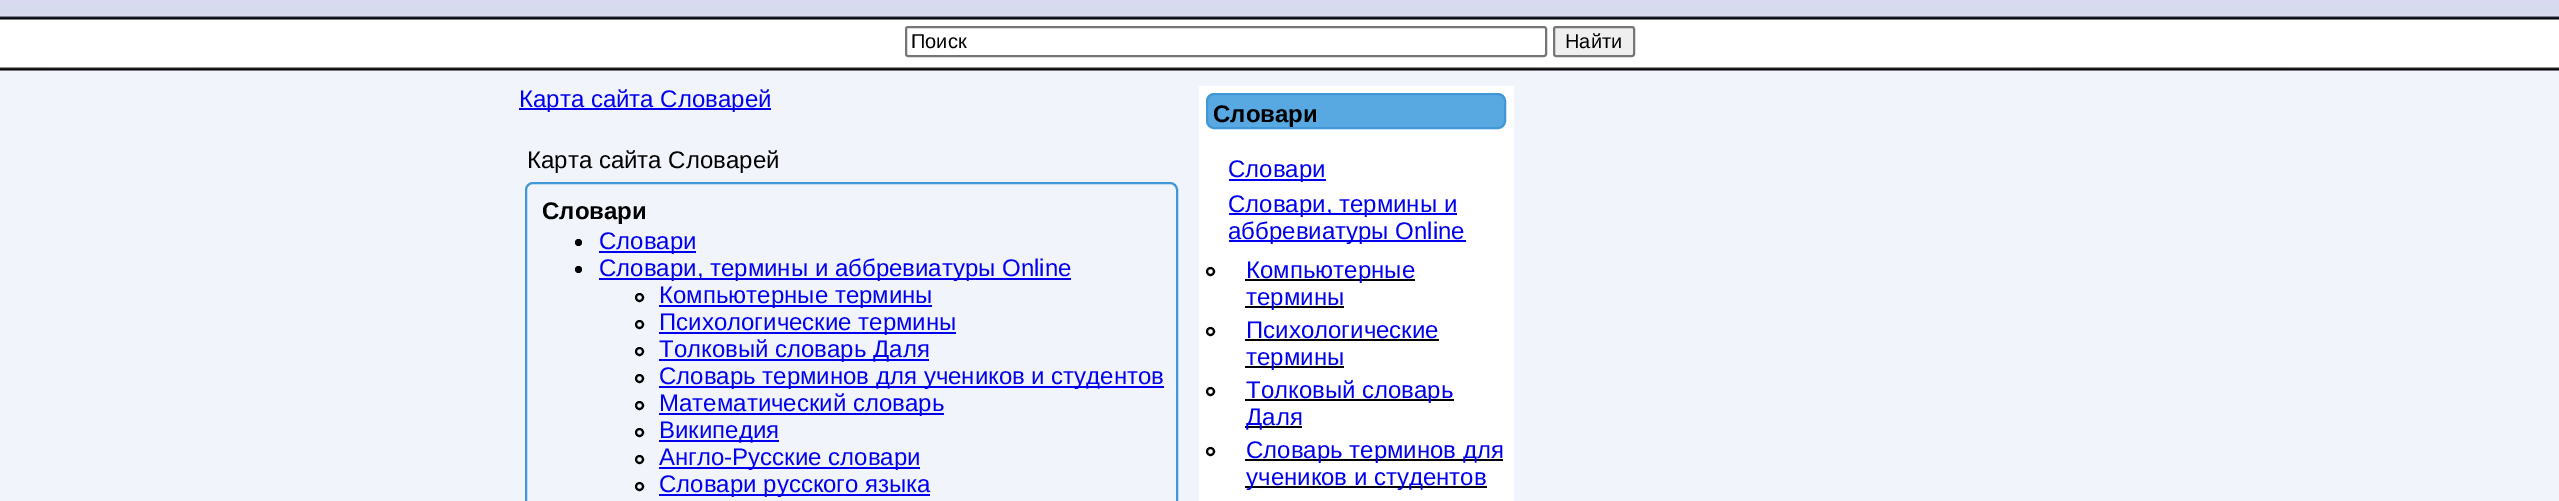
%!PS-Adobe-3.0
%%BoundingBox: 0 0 2559 501
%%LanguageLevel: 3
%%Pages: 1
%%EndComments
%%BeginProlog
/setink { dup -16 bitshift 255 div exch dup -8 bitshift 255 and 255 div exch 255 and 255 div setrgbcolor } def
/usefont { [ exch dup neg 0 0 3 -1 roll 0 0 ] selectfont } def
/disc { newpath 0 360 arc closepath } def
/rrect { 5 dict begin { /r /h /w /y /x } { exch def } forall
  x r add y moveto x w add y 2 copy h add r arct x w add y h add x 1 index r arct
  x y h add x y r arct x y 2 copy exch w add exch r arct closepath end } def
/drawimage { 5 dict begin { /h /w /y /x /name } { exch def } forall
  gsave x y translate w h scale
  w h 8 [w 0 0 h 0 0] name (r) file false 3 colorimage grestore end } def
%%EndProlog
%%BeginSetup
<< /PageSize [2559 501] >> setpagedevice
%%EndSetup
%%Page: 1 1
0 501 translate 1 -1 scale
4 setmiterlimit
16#F2F4FB setink
0 0 2559 501 rectfill
(img1.raw) 0 0 2559 71 drawimage
16#767676 setink
2 setlinewidth
906 27 640 29 2 rrect stroke
/LiberationSans-Regular 20 usefont
16#000000 setink
911 48 moveto (Поиск) show
16#EFEFEF setink
1554 27 80 29 2 rrect gsave fill grestore
16#767676 setink
stroke
16#000000 setink
1565 48 moveto (Найти) show
16#0000EE setink
519 108 252 2 rectfill
/LiberationSans-Regular 24 usefont
519 107 moveto (Карта сайта Словарей) show
16#000000 setink
527 168 moveto (Карта сайта Словарей) show
16#4297D7 setink
526 183 651 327 7 rrect stroke
/LiberationSans-Bold 24 usefont
16#000000 setink
542 219 moveto (Словари) show
578.5 242.5 3.5 disc fill
16#0000EE setink
599 251 97 2 rectfill
/LiberationSans-Regular 24 usefont
599 249 moveto (Словари) show
16#000000 setink
578.5 269.5 3.5 disc fill
16#0000EE setink
599 278 472 2 rectfill
599 276 moveto (Словари, термины и аббревиатуры Online) show
16#000000 setink
639.5 297.5 3.5 disc stroke
16#0000EE setink
659 305 273 2 rectfill
659 303 moveto (Компьютерные термины) show
16#000000 setink
639.5 324.5 3.5 disc stroke
16#0000EE setink
659 332 297 2 rectfill
659 330 moveto (Психологические термины) show
16#000000 setink
639.5 351.5 3.5 disc stroke
16#0000EE setink
659 359 270 2 rectfill
659 357 moveto (Толковый словарь Даля) show
16#000000 setink
639.5 378.5 3.5 disc stroke
16#0000EE setink
659 386 505 2 rectfill
659 384 moveto (Словарь терминов для учеников и студентов) show
16#000000 setink
639.5 405.5 3.5 disc stroke
16#0000EE setink
659 413 285 2 rectfill
659 411 moveto (Математический словарь) show
16#000000 setink
639.5 432.5 3.5 disc stroke
16#0000EE setink
659 440 120 2 rectfill
659 438 moveto (Википедия) show
16#000000 setink
639.5 459.5 3.5 disc stroke
16#0000EE setink
659 467 261 2 rectfill
659 465 moveto (Англо-Русские словари) show
16#000000 setink
639.5 486.5 3.5 disc stroke
16#0000EE setink
659 494 271 2 rectfill
659 492 moveto (Словари русского языка) show
16#FFFFFF setink
1199 86 315 415 rectfill
16#58A8E2 setink
1207 94 298 34 7 rrect gsave fill grestore
16#4297D7 setink
stroke
/LiberationSans-Bold 24 usefont
16#000000 setink
1213 122 moveto (Словари) show
16#0000EE setink
1229 179 97 2 rectfill
/LiberationSans-Regular 24 usefont
1228 177 moveto (Словари) show
1229 213 228 2 rectfill
1228 212 moveto (Словари, термины и) show
1229 240 237 2 rectfill
1228 239 moveto (аббревиатуры Online) show
16#000000 setink
1210.5 271.5 3.5 disc stroke
1245 279 170 2 rectfill
16#0000EE setink
1246 278 moveto (Компьютерные) show
16#000000 setink
1245 306 99 2 rectfill
16#0000EE setink
1246 305 moveto (термины) show
16#000000 setink
1210.5 331.5 3.5 disc stroke
16#0000EE setink
1246 338 moveto (Психологические) show
16#000000 setink
1245 339 194 2 rectfill
1245 366 99 2 rectfill
16#0000EE setink
1246 365 moveto (термины) show
16#000000 setink
1210.5 391.5 3.5 disc stroke
1245 399 209 2 rectfill
16#0000EE setink
1246 398 moveto (Толковый словарь) show
16#000000 setink
1245 426 57 2 rectfill
16#0000EE setink
1246 425 moveto (Даля) show
16#000000 setink
1210.5 451.5 3.5 disc stroke
1245 459 258 2 rectfill
16#0000EE setink
1246 458 moveto (Словарь терминов для) show
16#000000 setink
1245 486 242 2 rectfill
16#0000EE setink
1246 485 moveto (учеников и студентов) show
showpage
%%EOF
